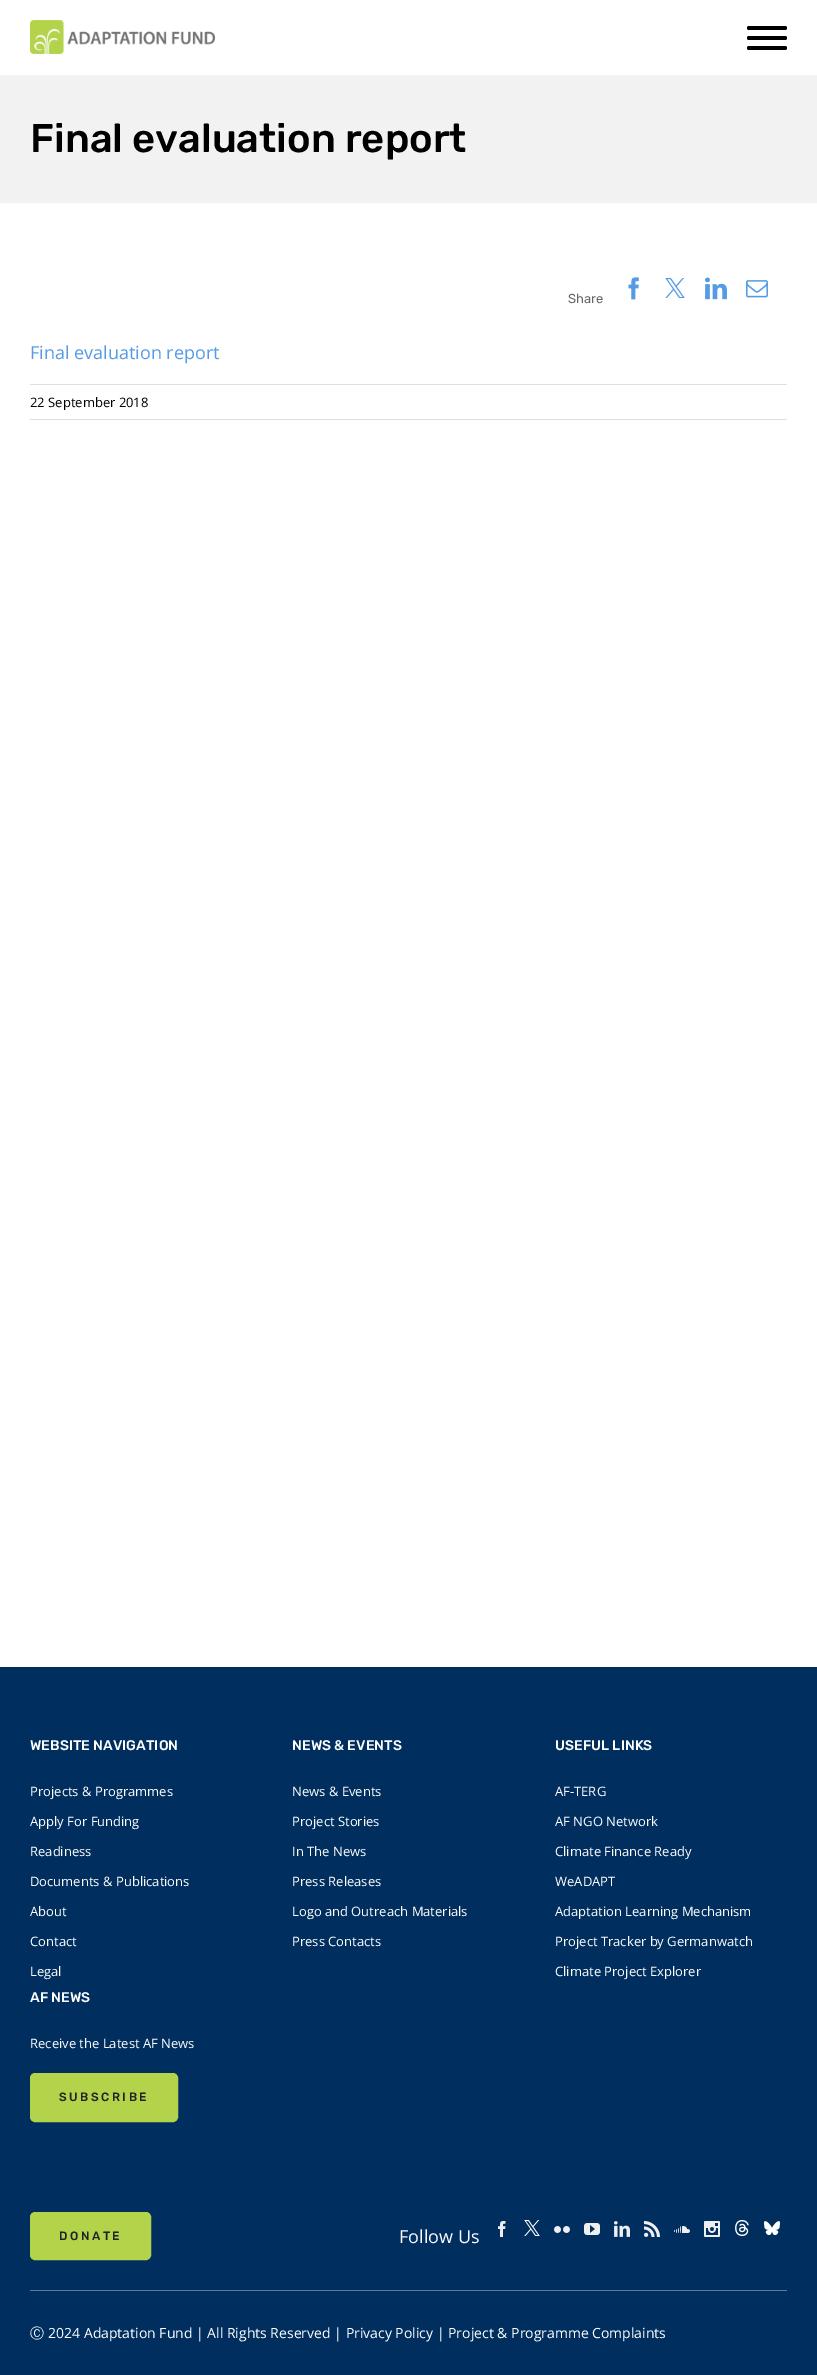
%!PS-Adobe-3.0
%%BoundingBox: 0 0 817 2375
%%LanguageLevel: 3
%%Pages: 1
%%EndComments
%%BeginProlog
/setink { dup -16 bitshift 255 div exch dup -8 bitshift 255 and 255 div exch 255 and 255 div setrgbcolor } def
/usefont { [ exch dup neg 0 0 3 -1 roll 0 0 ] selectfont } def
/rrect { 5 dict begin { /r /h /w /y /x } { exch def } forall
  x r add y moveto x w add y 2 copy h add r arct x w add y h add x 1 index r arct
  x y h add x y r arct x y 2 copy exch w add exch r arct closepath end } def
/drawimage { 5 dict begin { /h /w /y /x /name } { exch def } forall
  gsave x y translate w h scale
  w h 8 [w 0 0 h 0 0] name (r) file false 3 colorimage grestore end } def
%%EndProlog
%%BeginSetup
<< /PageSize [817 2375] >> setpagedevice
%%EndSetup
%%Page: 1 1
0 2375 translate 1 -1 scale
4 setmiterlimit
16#FFFFFF setink
0 0 817 2375 rectfill
(img1.raw) 30 20 185 35 drawimage
16#000000 setink
747 26 40 4 2 rrect fill
747 36 40 4 2 rrect fill
747 46 40 4 2 rrect fill
16#F2F2F2 setink
0 75 817 128 rectfill
/Rubik-Medium 40 usefont
16#000000 setink
30 152 moveto (Final evaluation report) show
/Rubik-Regular 13 usefont
16#666666 setink
568 303 moveto (Share) show
(img2.raw) 628 277 11 23 drawimage
(img3.raw) 665 278 20 20 drawimage
(img4.raw) 705 277 22 23 drawimage
(img5.raw) 746 280 22 18 drawimage
/OpenSans-Regular 18 usefont
16#549BE4 setink
30 359 moveto (Final evaluation report) show
16#E0DEDE setink
30 384 757 1 rectfill
30 419 757 1 rectfill
/OpenSans-Regular 13 usefont
16#000000 setink
30 407 moveto (22 September 2018) show
16#002F5F setink
0 1667 817 708 rectfill
/Rubik-Medium 14 usefont
16#FFFFFF setink
30 1750 moveto (WEBSITE NAVIGATION) show
/OpenSans-Regular 13 usefont
[
    [(Projects & Programmes) 30 1796]
    [(Apply For Funding) 30 1826]
    [(Readiness) 30 1856]
    [(Documents & Publications) 30 1886]
    [(About) 30 1916]
    [(Contact) 30 1946]
    [(Legal) 30 1976]
] { aload pop moveto show } forall
/Rubik-Medium 14 usefont
292 1750 moveto (NEWS & EVENTS) show
/OpenSans-Regular 13 usefont
[
    [(News & Events) 292 1796]
    [(Project Stories) 292 1826]
    [(In The News) 292 1856]
    [(Press Releases) 292 1886]
    [(Logo and Outreach Materials) 292 1916]
    [(Press Contacts) 292 1946]
] { aload pop moveto show } forall
/Rubik-Medium 14 usefont
555 1750 moveto (USEFUL LINKS) show
/OpenSans-Regular 13 usefont
[
    [(AF-TERG) 555 1796]
    [(AF NGO Network) 555 1826]
    [(Climate Finance Ready) 555 1856]
    [(WeADAPT) 555 1886]
    [(Adaptation Learning Mechanism) 555 1916]
    [(Project Tracker by Germanwatch) 555 1946]
    [(Climate Project Explorer) 555 1976]
] { aload pop moveto show } forall
/Rubik-Medium 14 usefont
30 2002 moveto (AF NEWS) show
/OpenSans-Regular 13 usefont
30 2048 moveto (Receive the Latest AF News) show
16#B2D34A setink
30.5 2073.5 147 48 4.5 rrect gsave fill grestore
stroke
/Rubik-Medium 12 usefont
16#232323 setink
59 2101 moveto 2.5 0 (SUBSCRIBE) ashow
16#5B7B9C setink
30 2290 757 1 rectfill
16#B2D34A setink
30.5 2212.5 120 47 4.5 rrect gsave fill grestore
stroke
16#232323 setink
59 2240 moveto 2.5 0 (DONATE) ashow
/OpenSans-Regular 18 usefont
16#FFFFFF setink
399 2243 moveto (Follow Us) show
(img6.raw) 498 2221 8 16 drawimage
(img7.raw) 524 2220 16 16 drawimage
(img8.raw) 554 2226 16 7 drawimage
(img9.raw) 584 2223 16 12 drawimage
(img10.raw) 614 2221 16 16 drawimage
(img11.raw) 644 2221 16 16 drawimage
(img12.raw) 674 2226 16 7 drawimage
(img13.raw) 704 2221 16 16 drawimage
(img14.raw) 735 2220 14 16 drawimage
(img15.raw) 764 2221 16 14 drawimage
/WenQuanYiZenHei-Medium 14 usefont
30 2338 moveto (Ⓒ) show
/OpenSans-Regular 14 usefont
48 2338 moveto (2024 Adaptation Fund | All Rights Reserved | Privacy Policy | Project & Programme Complaints) show
showpage
%%EOF
